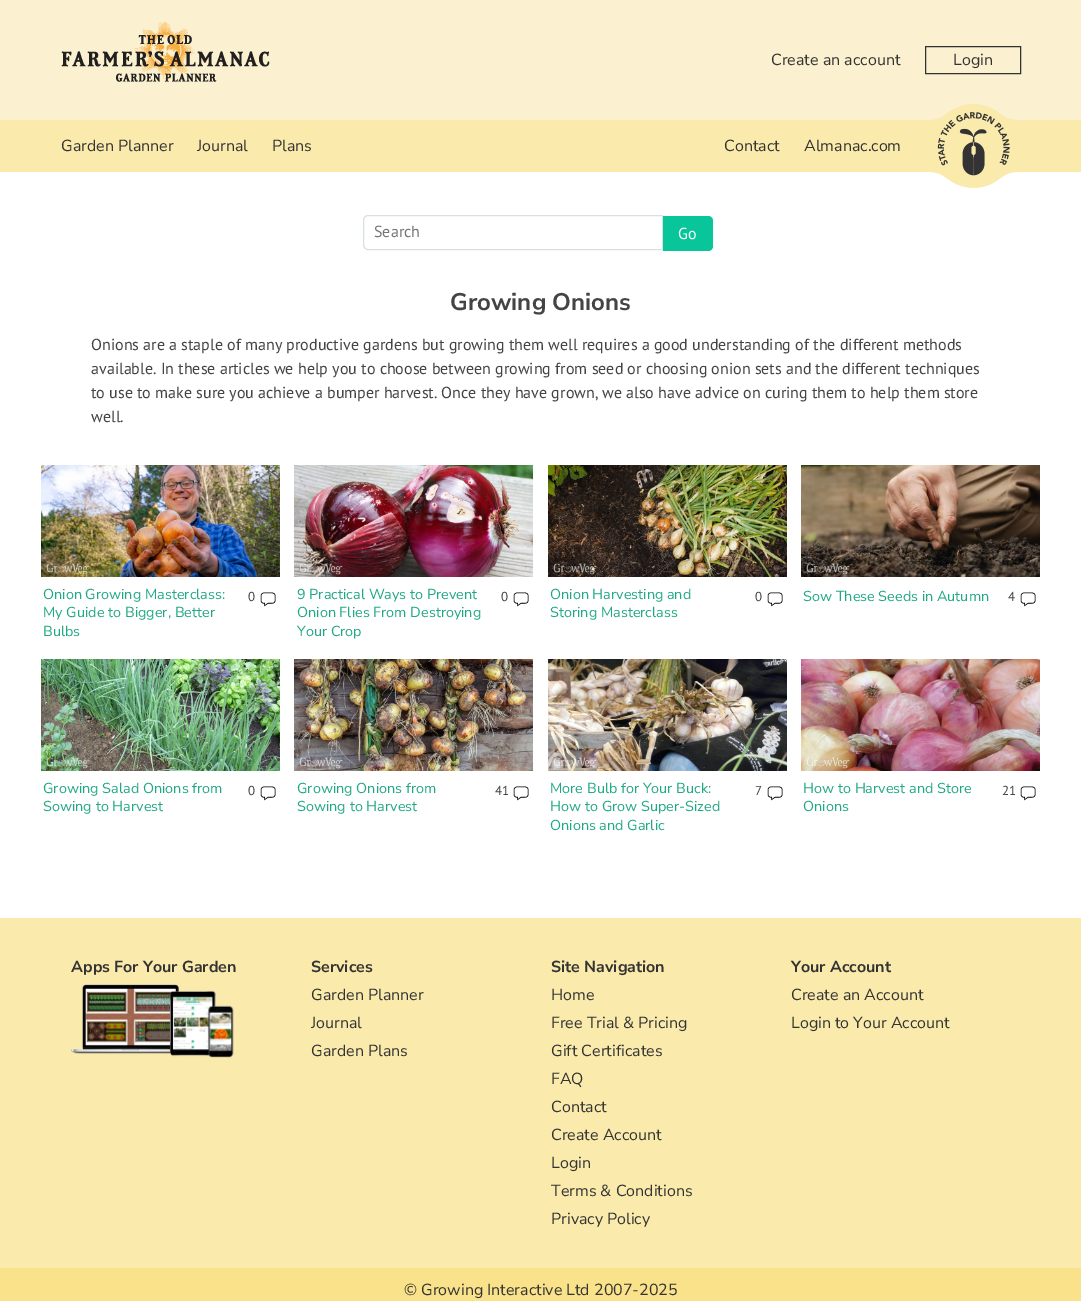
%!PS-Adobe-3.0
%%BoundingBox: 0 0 1081 1301
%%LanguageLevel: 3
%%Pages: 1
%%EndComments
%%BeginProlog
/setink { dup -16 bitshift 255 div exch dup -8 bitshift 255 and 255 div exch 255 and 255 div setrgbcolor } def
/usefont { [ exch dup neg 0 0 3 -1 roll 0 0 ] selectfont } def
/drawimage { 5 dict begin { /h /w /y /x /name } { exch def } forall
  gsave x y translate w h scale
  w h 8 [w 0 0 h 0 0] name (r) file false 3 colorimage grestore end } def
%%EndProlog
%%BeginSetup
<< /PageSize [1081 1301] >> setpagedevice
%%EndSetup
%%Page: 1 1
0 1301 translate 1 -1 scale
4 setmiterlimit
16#FFFFFF setink
0 0 1081 1301 rectfill
16#FBF1D0 setink
0 0 1081 120 rectfill
(img1.raw) 61 22 209 60 drawimage
/NunitoSans-Regular 16 usefont
16#333333 setink
771 65 moveto (Create an account) show
925.5 46.5 95 27 rectstroke
953 65 moveto (Login) show
16#FAEAAC setink
0 120 1081 52 rectfill
16#333333 setink
[
    [(Garden Planner) 61 151]
    [(Journal) 197 151]
    [(Plans) 272 151]
    [(Contact) 724 151]
    [(Almanac.com) 804 151]
] { aload pop moveto show } forall
(img2.raw) 931 104 85 84 drawimage
16#D9E0E2 setink
368 215.5 moveto 662.5 215.5 lineto 662.5 249.5 lineto 368 249.5 lineto 365.5 249.5 363.5 247.5 363.5 245 curveto 363.5 220 lineto 363.5 217.5 365.5 215.5 368 215.5 curveto closepath stroke
/PTSans-Regular 16 usefont
16#757575 setink
374 237 moveto (Search) show
16#08C69A setink
663 216 moveto 708 216 lineto 711 216 713 218 713 221 curveto 713 246 lineto 713 249 711 251 708 251 curveto 663 251 lineto closepath fill
16#FFFFFF setink
678 239 moveto (Go) show
/NunitoSans-Bold 24 usefont
16#444444 setink
450 310 moveto (Growing Onions) show
/PTSans-Regular 16 usefont
[
    [(Onions are a staple of many productive gardens but growing them well requires a good understanding of the different methods) 91 350]
    [(available. In these articles we help you to choose between growing from seed or choosing onion sets and the different techniques) 91 374]
    [(to use to make sure you achieve a bumper harvest. Once they have grown, we also have advice on curing them to help them store) 91 398]
    [(well.) 91 422]
] { aload pop moveto show } forall
(img3.raw) 41 465 239 112 drawimage
/NunitoSans-Regular 14.4 usefont
16#1EA883 setink
[
    [(Onion Growing Masterclass:) 43 599]
    [(My Guide to Bigger, Better) 43 617]
    [(Bulbs) 43 636]
] { aload pop moveto show } forall
/PTSans-Regular 13 usefont
16#444444 setink
248 601 moveto (0) show
(img4.raw) 260 592 16 15 drawimage
(img5.raw) 294 465 239 112 drawimage
/NunitoSans-Regular 14.4 usefont
16#1EA883 setink
[
    [(9 Practical Ways to Prevent) 297 599]
    [(Onion Flies From Destroying) 297 617]
    [(Your Crop) 297 636]
] { aload pop moveto show } forall
/PTSans-Regular 13 usefont
16#444444 setink
501 601 moveto (0) show
(img4.raw) 513 592 16 15 drawimage
(img6.raw) 548 465 239 112 drawimage
/NunitoSans-Regular 14.4 usefont
16#1EA883 setink
550 599 moveto (Onion Harvesting and) show
550 617 moveto (Storing Masterclass) show
/PTSans-Regular 13 usefont
16#444444 setink
755 601 moveto (0) show
(img4.raw) 767 592 16 15 drawimage
(img7.raw) 801 465 239 112 drawimage
/NunitoSans-Regular 14.4 usefont
16#1EA883 setink
803 601 moveto (Sow These Seeds in Autumn) show
/PTSans-Regular 13 usefont
16#444444 setink
1008 601 moveto (4) show
(img4.raw) 1020 592 16 15 drawimage
(img8.raw) 41 659 239 112 drawimage
/NunitoSans-Regular 14.4 usefont
16#1EA883 setink
43 793 moveto (Growing Salad Onions from) show
43 811 moveto (Sowing to Harvest) show
/PTSans-Regular 13 usefont
16#444444 setink
248 795 moveto (0) show
(img4.raw) 260 786 16 15 drawimage
(img9.raw) 294 659 239 112 drawimage
/NunitoSans-Regular 14.4 usefont
16#1EA883 setink
297 793 moveto (Growing Onions from) show
297 811 moveto (Sowing to Harvest) show
/PTSans-Regular 13 usefont
16#444444 setink
495 795 moveto (41) show
(img4.raw) 513 786 16 15 drawimage
(img10.raw) 548 659 239 112 drawimage
/NunitoSans-Regular 14.4 usefont
16#1EA883 setink
[
    [(More Bulb for Your Buck:) 550 793]
    [(How to Grow Super-Sized) 550 811]
    [(Onions and Garlic) 550 830]
] { aload pop moveto show } forall
/PTSans-Regular 13 usefont
16#444444 setink
755 795 moveto (7) show
(img4.raw) 767 786 16 15 drawimage
(img11.raw) 801 659 239 112 drawimage
/NunitoSans-Regular 14.4 usefont
16#1EA883 setink
803 793 moveto (How to Harvest and Store) show
803 811 moveto (Onions) show
/PTSans-Regular 13 usefont
16#444444 setink
1002 795 moveto (21) show
(img4.raw) 1020 786 16 15 drawimage
16#FAEAAC setink
0 918 1081 350 rectfill
/NunitoSans-Bold 16 usefont
16#333333 setink
71 972 moveto (Apps For Your Garden) show
(img12.raw) 71 984 163 74 drawimage
311 972 moveto (Services) show
/NunitoSans-Regular 16 usefont
[
    [(Garden Planner) 311 1000]
    [(Journal) 311 1028]
    [(Garden Plans) 311 1056]
] { aload pop moveto show } forall
/NunitoSans-Bold 16 usefont
551 972 moveto (Site Navigation) show
/NunitoSans-Regular 16 usefont
[
    [(Home) 551 1000]
    [(Free Trial & Pricing) 551 1028]
    [(Gift Certificates) 551 1056]
    [(FAQ) 551 1084]
    [(Contact) 551 1112]
    [(Create Account) 551 1140]
    [(Login) 551 1168]
    [(Terms & Conditions) 551 1196]
    [(Privacy Policy) 551 1224]
] { aload pop moveto show } forall
/NunitoSans-Bold 16 usefont
791 972 moveto (Your Account) show
/NunitoSans-Regular 16 usefont
791 1000 moveto (Create an Account) show
791 1028 moveto (Login to Your Account) show
16#F9E289 setink
0 1268 1081 33 rectfill
16#333333 setink
404 1295 moveto (© Growing Interactive Ltd 2007-2025) show
showpage
%%EOF
